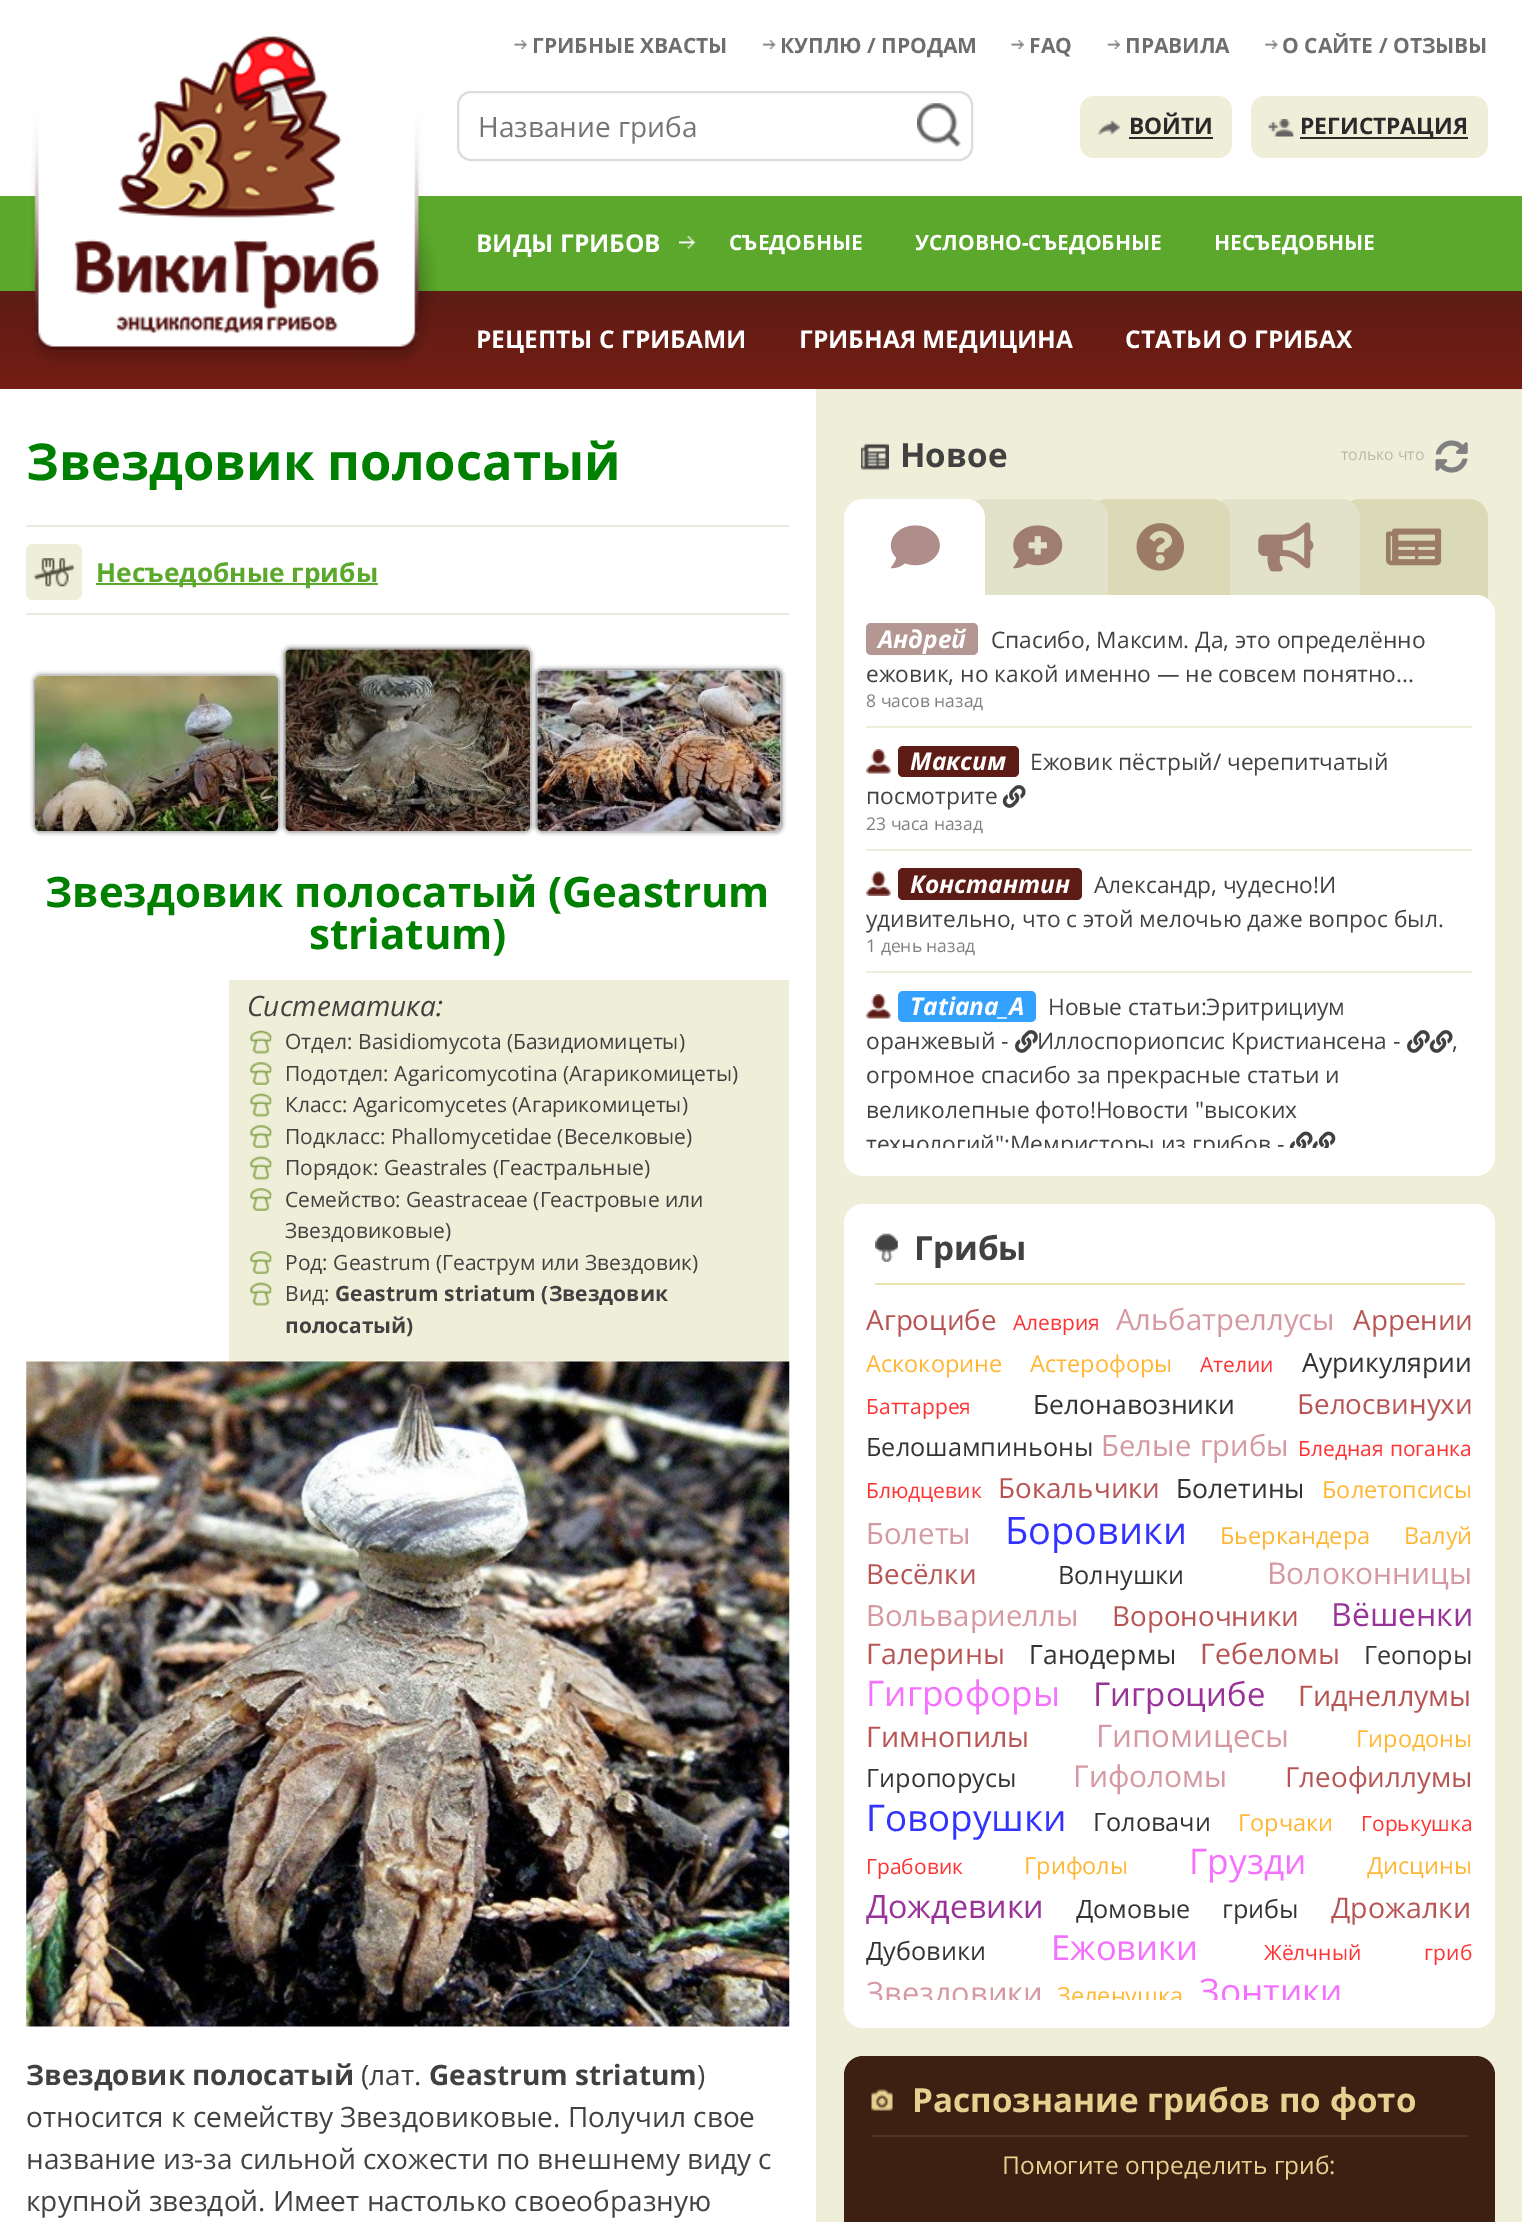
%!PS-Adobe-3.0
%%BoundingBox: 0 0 1522 2222
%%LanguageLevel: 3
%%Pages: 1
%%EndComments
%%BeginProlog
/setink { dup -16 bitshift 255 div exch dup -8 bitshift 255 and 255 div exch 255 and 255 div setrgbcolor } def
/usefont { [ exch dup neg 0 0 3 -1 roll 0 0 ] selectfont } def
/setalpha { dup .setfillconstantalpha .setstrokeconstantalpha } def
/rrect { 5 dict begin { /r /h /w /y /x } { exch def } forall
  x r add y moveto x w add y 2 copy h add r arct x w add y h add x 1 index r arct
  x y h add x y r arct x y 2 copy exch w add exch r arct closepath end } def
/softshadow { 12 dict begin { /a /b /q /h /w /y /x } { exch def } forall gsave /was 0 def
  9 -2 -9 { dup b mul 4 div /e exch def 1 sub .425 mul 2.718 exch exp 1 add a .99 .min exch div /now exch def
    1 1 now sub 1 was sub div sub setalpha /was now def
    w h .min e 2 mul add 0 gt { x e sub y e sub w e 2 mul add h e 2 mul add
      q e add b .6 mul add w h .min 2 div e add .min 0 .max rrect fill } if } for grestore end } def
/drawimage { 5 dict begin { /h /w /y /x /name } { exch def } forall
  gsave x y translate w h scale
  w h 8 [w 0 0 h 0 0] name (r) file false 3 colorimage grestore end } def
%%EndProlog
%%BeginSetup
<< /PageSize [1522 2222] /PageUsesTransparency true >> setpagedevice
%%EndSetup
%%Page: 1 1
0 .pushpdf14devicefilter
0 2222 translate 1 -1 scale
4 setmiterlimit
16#FFFFFF setink
0 0 1522 2222 rectfill
16#5BA82C setink
0 196 1522 95 rectfill
gsave 0 291 moveto 1522 291 lineto 1522 389 lineto 0 389 lineto closepath clip newpath
<< /ShadingType 2 /ColorSpace /DeviceRGB /Coords [761 290 761 389] /Extend [true true] /Function << /FunctionType 2 /Domain [0 1] /C0 [0.365 0.11 0.082] /C1 [0.455 0.114 0.075] /N 1 >> >> shfill grestore
(img1.raw) 31 36 406 327 drawimage
(img2.raw) 514 40 13 9 drawimage
/OpenSans-Bold 21 usefont
16#6E6E6E setink
532 53 moveto (ГРИБНЫЕ ХВАСТЫ) show
(img3.raw) 763 40 13 9 drawimage
780 53 moveto (КУПЛЮ / ПРОДАМ) show
(img2.raw) 1011 40 13 9 drawimage
1029 53 moveto (FAQ) show
(img4.raw) 1107 40 13 9 drawimage
1125 53 moveto (ПРАВИЛА) show
(img5.raw) 1265 40 13 9 drawimage
1282 53 moveto (О САЙТЕ / ОТЗЫВЫ) show
16#DBDBDB setink
2 setlinewidth
458 92 514 68 13 rrect stroke
/OpenSans-Regular 28 usefont
16#757575 setink
478 137 moveto (Название гриба) show
(img6.raw) 917 103 44 44 drawimage
16#EFEED8 setink
1080 96 152 62 14 rrect fill
(img7.raw) 1097 120 23 15 drawimage
/OpenSans-Bold 22.75 usefont
16#2A2A2A setink
1129 134 moveto (ВОЙТИ) show
1129 137 84 2 rectfill
16#EFEED8 setink
1251 96 237 62 14 rrect fill
(img8.raw) 1268 119 26 18 drawimage
16#2A2A2A setink
1300 137 168 2 rectfill
1300 134 moveto (РЕГИСТРАЦИЯ) show
/OpenSans-Bold 24.5 usefont
16#FFFFFF setink
476 252 moveto (ВИДЫ ГРИБОВ) show
(img9.raw) 679 236 16 13 drawimage
/OpenSans-Bold 21 usefont
[
    [(СЪЕДОБНЫЕ) 729 250]
    [(УСЛОВНО-СЪЕДОБНЫЕ) 915 250]
    [(НЕСЪЕДОБНЫЕ) 1214 250]
] { aload pop moveto show } forall
/OpenSans-Bold 24.5 usefont
[
    [(РЕЦЕПТЫ С ГРИБАМИ) 476 348]
    [(ГРИБНАЯ МЕДИЦИНА) 799 348]
    [(СТАТЬИ О ГРИБАХ) 1125 348]
] { aload pop moveto show } forall
/OpenSans-Bold 50.75 usefont
16#008000 setink
26 480 moveto (Звездовик полосатый) show
16#EAE9DC setink
26 525 763 2 rectfill
26 613 763 2 rectfill
16#EFEED8 setink
26 544 56 56 7 rrect fill
(img10.raw) 33 558 42 29 drawimage
16#5BA82C setink
96 583 282 2 rectfill
/OpenSans-Bold 26.25 usefont
96 582 moveto (Несъедобные грибы) show
16#000000 setink
35 676 243 155 5 2.5 0.75 softshadow
(img11.raw) 35 675 244 157 drawimage
285 649 245 182 5 2.5 0.75 softshadow
(img12.raw) 285 649 246 183 drawimage
537 670 244 161 5 2.5 0.75 softshadow
(img13.raw) 537 670 244 162 drawimage
/OpenSans-Bold 42 usefont
16#008000 setink
45 907 moveto (Звездовик полосатый \(Geastrum) show
309 949 moveto (striatum\)) show
16#EFEED8 setink
229 980 560 382 rectfill
/OpenSans-Italic 28 usefont
16#414141 setink
247 1016 moveto (Систематика:) show
(img14.raw) 250 1030 22 24 drawimage
/OpenSans-Regular 21 usefont
285 1049 moveto (Отдел: Basidiomycota \(Базидиомицеты\)) show
(img15.raw) 250 1062 22 23 drawimage
285 1081 moveto (Подотдел: Agaricomycotina \(Агарикомицеты\)) show
(img14.raw) 250 1093 22 24 drawimage
285 1112 moveto (Класс: Agaricomycetes \(Агарикомицеты\)) show
(img15.raw) 250 1125 22 23 drawimage
285 1144 moveto (Подкласс: Phallomycetidae \(Веселковые\)) show
(img14.raw) 250 1156 22 24 drawimage
285 1175 moveto (Порядок: Geastrales \(Геастральные\)) show
(img15.raw) 250 1188 22 23 drawimage
285 1207 moveto (Семейство: Geastraceae \(Геастровые или) show
285 1238 moveto (Звездовиковые\)) show
(img15.raw) 250 1251 22 23 drawimage
285 1270 moveto (Род: Geastrum \(Геаструм или Звездовик\)) show
(img14.raw) 250 1282 22 24 drawimage
285 1301 moveto (Вид:) show
/OpenSans-Bold 21 usefont
335 1301 moveto (Geastrum striatum \(Звездовик) show
285 1333 moveto (полосатый\)) show
(img16.raw) 26 1361 764 666 drawimage
/OpenSans-Bold 28 usefont
26 2085 moveto (Звездовик полосатый) show
/OpenSans-Regular 28 usefont
361 2085 moveto (\(лат.) show
/OpenSans-Bold 28 usefont
429 2085 moveto (Geastrum striatum) show
/OpenSans-Regular 28 usefont
[
    [(\)) 697 2085]
    [(относится к семейству Звездовиковые. Получил свое) 26 2127]
    [(название из-за сильной схожести по внешнему виду с) 26 2169]
    [(крупной звездой. Имеет настолько своеобразную) 26 2211]
] { aload pop moveto show } forall
16#EFEED8 setink
816 389 706 1833 rectfill
(img17.raw) 861 443 28 28 drawimage
/OpenSans-Bold 33.25 usefont
16#414141 setink
900 467 moveto (Новое) show
/OpenSans-Regular 15.75 usefont
16#B9B8AD setink
1341 460 moveto (только что) show
(img18.raw) 1435 440 33 33 drawimage
16#DBDAB7 setink
1360 499 moveto 1469 499 lineto 1479.5 499 1488 507.5 1488 518 curveto 1488 609 lineto 1341 609 lineto 1341 518 lineto 1341 507.5 1349.5 499 1360 499 curveto closepath fill
16#E2E1C9 setink
1230 499 moveto 1341 499 lineto 1351.5 499 1360 507.5 1360 518 curveto 1360 609 lineto 1211 609 lineto 1211 518 lineto 1211 507.5 1219.5 499 1230 499 curveto closepath fill
16#DBDAB7 setink
1108 499 moveto 1211 499 lineto 1221.5 499 1230 507.5 1230 518 curveto 1230 609 lineto 1089 609 lineto 1089 518 lineto 1089 507.5 1097.5 499 1108 499 curveto closepath fill
16#E2E1C9 setink
985 499 moveto 1089 499 lineto 1099.5 499 1108 507.5 1108 518 curveto 1108 609 lineto 966 609 lineto 966 518 lineto 966 507.5 974.5 499 985 499 curveto closepath fill
16#FFFFFF setink
863 499 moveto 966 499 lineto 976.5 499 985 507.5 985 518 curveto 985 609 lineto 844 609 lineto 844 518 lineto 844 507.5 852.5 499 863 499 curveto closepath fill
(img19.raw) 890 525 50 44 drawimage
(img20.raw) 1013 525 50 44 drawimage
(img21.raw) 1136 523 48 48 drawimage
(img22.raw) 1258 522 56 50 drawimage
(img23.raw) 1386 528 56 38 drawimage
844 595 651 581 19 rrect fill
16#EFEED8 setink
866 726 606 2 rectfill
16#B49793 setink
866 623 112 32 5 rrect fill
/OpenSans-BoldItalic 24.5 usefont
16#FFFFFF setink
878 648 moveto (Андрей) show
/OpenSans-Regular 22.75 usefont
16#414141 setink
991 648 moveto (Спасибо, Максим. Да, это определённо) show
866 682 moveto (ежовик, но какой именно — не совсем понятно...) show
/OpenSans-Regular 17.5 usefont
16#808080 setink
866 707 moveto (8 часов назад) show
16#EFEED8 setink
866 849 606 2 rectfill
/OpenSans-Regular 22.75 usefont
16#414141 setink
1030 770 moveto (Ежовик пёстрый/ черепитчатый) show
866 804 moveto (посмотрите) show
(img24.raw) 1002 785 24 23 drawimage
16#5D1C15 setink
898 746 121 31 5 rrect fill
(img25.raw) 866 749 25 25 drawimage
/OpenSans-BoldItalic 24.5 usefont
16#FFFFFF setink
910 770 moveto (Максим) show
/OpenSans-Regular 17.5 usefont
16#808080 setink
866 830 moveto (23 часа назад) show
16#EFEED8 setink
866 971 606 2 rectfill
16#5D1C15 setink
898 868 184 32 5 rrect fill
(img26.raw) 866 871 25 25 drawimage
/OpenSans-BoldItalic 24.5 usefont
16#FFFFFF setink
910 893 moveto (Константин) show
/OpenSans-Regular 22.75 usefont
16#414141 setink
1094 893 moveto (Александр, чудесно!И) show
866 927 moveto (удивительно, что с этой мелочью даже вопрос был.) show
/OpenSans-Regular 17.5 usefont
16#808080 setink
866 952 moveto (1 день назад) show
16#35A1FF setink
898 991 138 31 5 rrect fill
(img25.raw) 866 994 25 25 drawimage
/OpenSans-BoldItalic 24.5 usefont
16#FFFFFF setink
910 1015 moveto (Tatiana_A) show
/OpenSans-Regular 22.75 usefont
16#414141 setink
1048 1015 moveto (Новые статьи:Эритрициум) show
866 1049 moveto (оранжевый -) show
(img27.raw) 1015 1030 23 23 drawimage
1037 1049 moveto (Иллоспориопсис Кристиансена -) show
(img27.raw) 1407 1030 23 23 drawimage
(img28.raw) 1429 1030 24 23 drawimage
[
    [(,) 1452 1049]
    [(огромное спасибо за прекрасные статьи и) 866 1083]
    [(великолепные фото!Новости "высоких) 866 1118]
] { aload pop moveto show } forall
gsave
858 623 623 525 rectclip
866 1152 moveto (технологий":Мемристоры из грибов -) show
grestore
(img29.raw) 1289 1131 24 17 drawimage
(img30.raw) 1312 1131 24 17 drawimage
16#FFFFFF setink
844 1204 651 824 19 rrect fill
16#ECE1AD setink
875 1283 590 2 rectfill
(img31.raw) 875 1233 23 29 drawimage
/OpenSans-Bold 33.25 usefont
16#414141 setink
914 1260 moveto (Грибы) show
/OpenSans-Regular 27.75 usefont
16#B75555 setink
866 1330 moveto (Агроцибе) show
/OpenSans-Regular 21 usefont
16#FF3333 setink
1013 1330 moveto (Алеврия) show
/OpenSans-Regular 29.25 usefont
16#D599A3 setink
1116 1330 moveto (Альбатреллусы) show
/OpenSans-Regular 27.75 usefont
16#B75555 setink
1353 1330 moveto (Аррении) show
/OpenSans-Regular 23.5 usefont
16#FFB733 setink
866 1372 moveto (Аскокорине) show
1030 1372 moveto (Астерофоры) show
/OpenSans-Regular 21 usefont
16#FF3333 setink
1200 1372 moveto (Ателии) show
/OpenSans-Regular 26.5 usefont
16#333333 setink
1302 1372 moveto (Аурикулярии) show
/OpenSans-Regular 21 usefont
16#FF3333 setink
866 1414 moveto (Баттаррея) show
/OpenSans-Regular 26.5 usefont
16#333333 setink
1033 1414 moveto (Белонавозники) show
/OpenSans-Regular 27.75 usefont
16#B75555 setink
1297 1414 moveto (Белосвинухи) show
/OpenSans-Regular 25.25 usefont
16#333333 setink
866 1456 moveto (Белошампиньоны) show
/OpenSans-Regular 29.25 usefont
16#D599A3 setink
1101 1456 moveto 1 0 32 (Белые грибы) widthshow
/OpenSans-Regular 21 usefont
16#FF3333 setink
1298 1456 moveto 1 0 32 (Бледная поганка) widthshow
866 1498 moveto (Блюдцевик) show
/OpenSans-Regular 27.75 usefont
16#B75555 setink
998 1498 moveto (Бокальчики) show
/OpenSans-Regular 26.5 usefont
16#333333 setink
1176 1498 moveto (Болетины) show
/OpenSans-Regular 23.5 usefont
16#FFB733 setink
1322 1498 moveto (Болетопсисы) show
/OpenSans-Regular 29.25 usefont
16#D599A3 setink
866 1544 moveto (Болеты) show
/OpenSans-Regular 38 usefont
16#3333FF setink
1005 1544 moveto (Боровики) show
/OpenSans-Regular 23.5 usefont
16#FFB733 setink
1220 1544 moveto (Бьеркандера) show
1404 1544 moveto (Валуй) show
/OpenSans-Regular 27.75 usefont
16#B75555 setink
866 1584 moveto (Весёлки) show
/OpenSans-Regular 25.25 usefont
16#333333 setink
1058 1584 moveto (Волнушки) show
/OpenSans-Regular 30 usefont
16#D599A3 setink
1267 1584 moveto (Волоконницы) show
/OpenSans-Regular 29.25 usefont
866 1626 moveto (Вольвариеллы) show
/OpenSans-Regular 27.75 usefont
16#B75555 setink
1112 1626 moveto (Вороночники) show
/OpenSans-Regular 32 usefont
16#993399 setink
1331 1626 moveto (Вёшенки) show
/OpenSans-Regular 28.5 usefont
16#B75555 setink
866 1664 moveto (Галерины) show
/OpenSans-Regular 26.5 usefont
16#333333 setink
1029 1664 moveto (Ганодермы) show
/OpenSans-Regular 28.5 usefont
16#B75555 setink
1200 1664 moveto (Гебеломы) show
/OpenSans-Regular 25.25 usefont
16#333333 setink
1364 1664 moveto (Геопоры) show
/OpenSans-Regular 35.25 usefont
16#F670FF setink
866 1706 moveto (Гигрофоры) show
/OpenSans-Regular 33 usefont
16#993399 setink
1093 1706 moveto (Гигроцибе) show
/OpenSans-Regular 28.5 usefont
16#B75555 setink
1298 1706 moveto (Гиднеллумы) show
866 1747 moveto (Гимнопилы) show
/OpenSans-Regular 31.25 usefont
16#D599A3 setink
1096 1747 moveto (Гипомицесы) show
/OpenSans-Regular 23.5 usefont
16#FFB733 setink
1356 1747 moveto (Гиродоны) show
/OpenSans-Regular 25.25 usefont
16#333333 setink
866 1787 moveto (Гиропорусы) show
/OpenSans-Regular 30 usefont
16#D599A3 setink
1073 1787 moveto (Гифоломы) show
/OpenSans-Regular 27.75 usefont
16#B75555 setink
1285 1787 moveto (Глеофиллумы) show
/OpenSans-Regular 36.75 usefont
16#3333FF setink
866 1831 moveto (Говорушки) show
/OpenSans-Regular 25.25 usefont
16#333333 setink
1093 1831 moveto (Головачи) show
/OpenSans-Regular 23.5 usefont
16#FFB733 setink
1238 1831 moveto (Горчаки) show
/OpenSans-Regular 21 usefont
16#FF3333 setink
1361 1831 moveto (Горькушка) show
866 1874 moveto (Грабовик) show
/OpenSans-Regular 23.5 usefont
16#FFB733 setink
1024 1874 moveto (Грифолы) show
/OpenSans-Regular 35.25 usefont
16#F670FF setink
1189 1874 moveto (Грузди) show
/OpenSans-Regular 23.5 usefont
16#FFB733 setink
1367 1874 moveto (Дисцины) show
/OpenSans-Regular 32.25 usefont
16#993399 setink
866 1918 moveto (Дождевики) show
/OpenSans-Regular 25.25 usefont
16#333333 setink
1076 1918 moveto 25 0 32 (Домовые грибы) widthshow
/OpenSans-Regular 28.5 usefont
16#B75555 setink
1331 1918 moveto (Дрожалки) show
/OpenSans-Regular 25.25 usefont
16#333333 setink
866 1960 moveto (Дубовики) show
/OpenSans-Regular 34.5 usefont
16#F670FF setink
1051 1960 moveto (Ежовики) show
/OpenSans-Regular 21 usefont
16#FF3333 setink
1264 1960 moveto 58 0 32 (Жёлчный гриб) widthshow
gsave
858 1300 623 700 rectclip
/OpenSans-Regular 30.75 usefont
16#D599A3 setink
866 2004 moveto (Звездовики) show
/OpenSans-Regular 23.5 usefont
16#FFB733 setink
1057 2004 moveto (Зеленушка) show
/OpenSans-Regular 35.25 usefont
16#F670FF setink
1199 2004 moveto (Зонтики) show
grestore
16#3E2013 setink
844 2056 651 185 19 rrect fill
16#563223 setink
872 2135 595 2 rectfill
(img32.raw) 871 2089 22 22 drawimage
/OpenSans-Bold 33.25 usefont
16#E5D291 setink
912 2112 moveto (Распознание грибов по фото) show
/OpenSans-Regular 24.5 usefont
1002 2174 moveto (Помогите определить гриб:) show
.poppdf14devicefilter showpage
%%EOF
